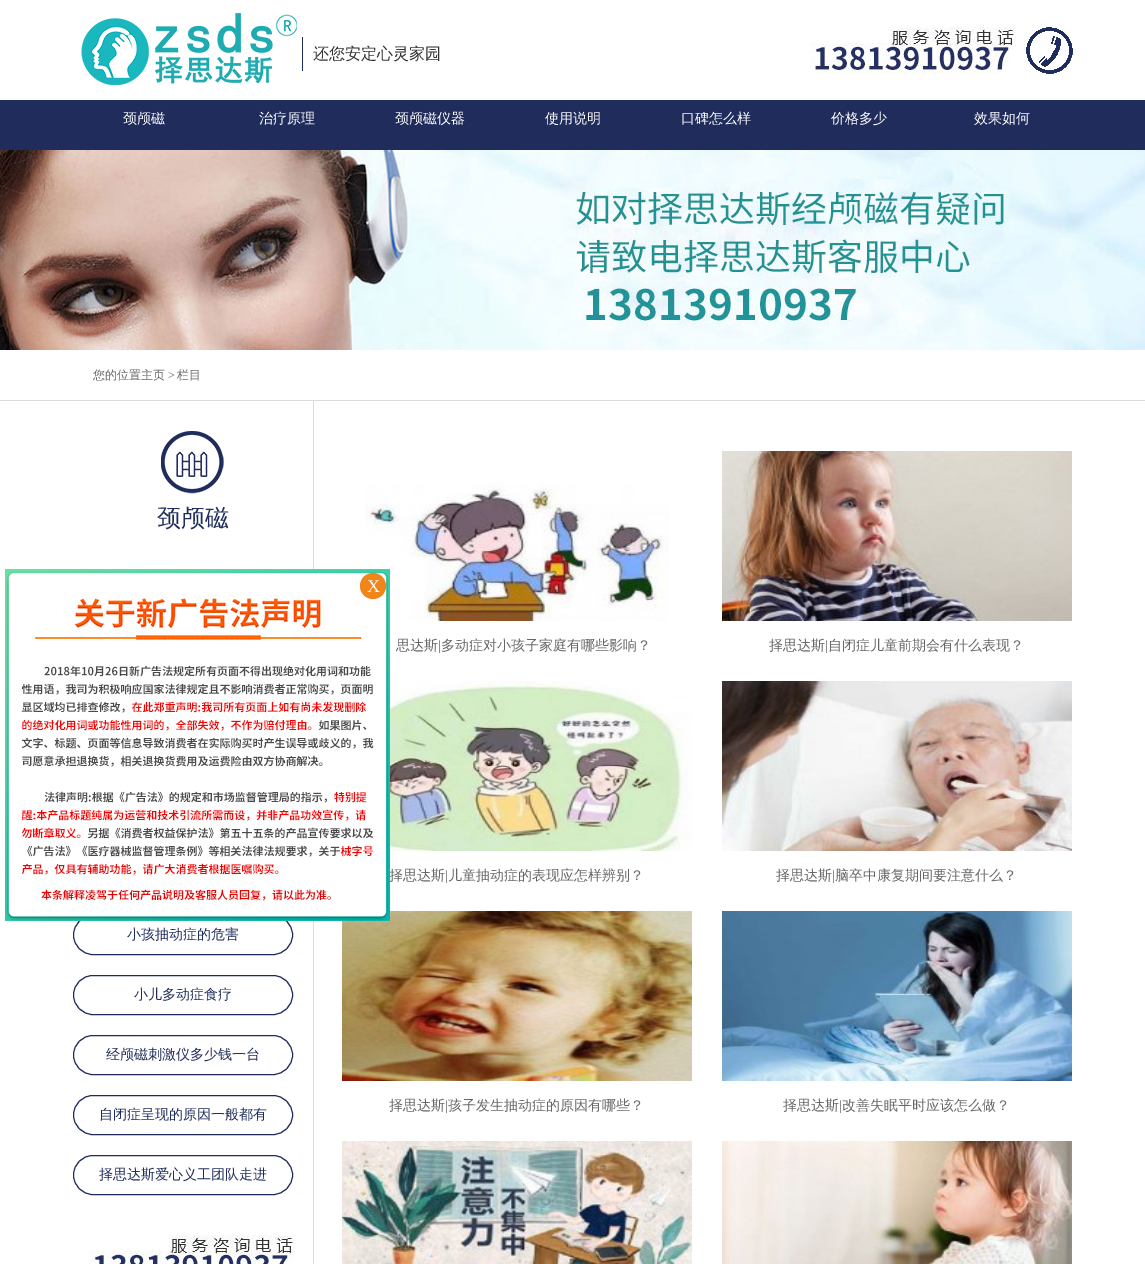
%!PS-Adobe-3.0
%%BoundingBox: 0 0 1145 1264
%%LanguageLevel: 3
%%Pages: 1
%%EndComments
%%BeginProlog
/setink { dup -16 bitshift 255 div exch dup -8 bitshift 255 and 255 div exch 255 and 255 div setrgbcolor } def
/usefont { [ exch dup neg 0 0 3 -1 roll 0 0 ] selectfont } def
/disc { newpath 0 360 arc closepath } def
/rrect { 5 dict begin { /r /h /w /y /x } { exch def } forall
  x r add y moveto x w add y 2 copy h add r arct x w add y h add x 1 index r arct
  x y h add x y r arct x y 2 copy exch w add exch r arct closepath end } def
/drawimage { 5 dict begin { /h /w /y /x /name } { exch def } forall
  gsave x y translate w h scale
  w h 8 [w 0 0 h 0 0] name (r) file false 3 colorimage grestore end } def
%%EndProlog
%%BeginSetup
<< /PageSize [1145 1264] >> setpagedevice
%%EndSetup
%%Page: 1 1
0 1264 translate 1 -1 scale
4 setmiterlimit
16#FFFFFF setink
0 0 1145 1264 rectfill
(img1.raw) 81 13 216 72 drawimage
16#1F2C5C setink
302 37 1 34 rectfill
/WenQuanYiZenHei-Medium 16 usefont
16#333333 setink
313 59 moveto (还您安定心灵家园) show
(img2.raw) 810 27 206 47 drawimage
(img3.raw) 1026 27 47 47 drawimage
16#1F2C5C setink
0 100 1145 50 rectfill
/WenQuanYiZenHei-Medium 14 usefont
16#FFFFFF setink
[
    [(颈颅磁) 123 123]
    [(治疗原理) 259 123]
    [(颈颅磁仪器) 395 123]
    [(使用说明) 545 123]
    [(口碑怎么样) 681 123]
    [(价格多少) 831 123]
    [(效果如何) 974 123]
] { aload pop moveto show } forall
(img4.raw) 0 150 1145 200 drawimage
16#DBDBDB setink
0 400 1145 1 rectfill
/WenQuanYiZenHei-Medium 12 usefont
16#666666 setink
93 379 moveto (您的位置主页) show
/LiberationSerif-Regular 12 usefont
168 379 moveto (>) show
/WenQuanYiZenHei-Medium 12 usefont
177 379 moveto (栏目) show
(img5.raw) 161 431 63 63 drawimage
/WenQuanYiZenHei-Medium 24 usefont
16#1F2C5C setink
157 526 moveto (颈颅磁) show
73.5 915.5 219 39 19.5 rrect stroke
/WenQuanYiZenHei-Medium 14 usefont
127 939 moveto (小孩抽动症的危害) show
73.5 975.5 219 39 19.5 rrect stroke
134 999 moveto (小儿多动症食疗) show
73.5 1035.5 219 39 19.5 rrect stroke
106 1059 moveto (经颅磁刺激仪多少钱一台) show
73.5 1095.5 219 39 19.5 rrect stroke
99 1119 moveto (自闭症呈现的原因一般都有) show
73.5 1155.5 219 39 19.5 rrect stroke
99 1179 moveto (择思达斯爱心义工团队走进) show
(img6.raw) 89 1235 206 29 drawimage
16#DBDBDB setink
313 401 1 863 rectfill
(img7.raw) 365 483 304 138 drawimage
16#666666 setink
396 650 moveto (思达斯) show
/LiberationSerif-Regular 14 usefont
438 650 moveto (|) show
/WenQuanYiZenHei-Medium 14 usefont
441 650 moveto (多动症对小孩子家庭有哪些影响？) show
(img8.raw) 722 451 350 170 drawimage
769 650 moveto (择思达斯) show
/LiberationSerif-Regular 14 usefont
825 650 moveto (|) show
/WenQuanYiZenHei-Medium 14 usefont
828 650 moveto (自闭症儿童前期会有什么表现？) show
(img9.raw) 390 681 302 170 drawimage
389 880 moveto (择思达斯) show
/LiberationSerif-Regular 14 usefont
445 880 moveto (|) show
/WenQuanYiZenHei-Medium 14 usefont
448 880 moveto (儿童抽动症的表现应怎样辨别？) show
(img10.raw) 722 681 350 170 drawimage
776 880 moveto (择思达斯) show
/LiberationSerif-Regular 14 usefont
832 880 moveto (|) show
/WenQuanYiZenHei-Medium 14 usefont
835 880 moveto (脑卒中康复期间要注意什么？) show
(img11.raw) 342 911 350 170 drawimage
389 1110 moveto (择思达斯) show
/LiberationSerif-Regular 14 usefont
445 1110 moveto (|) show
/WenQuanYiZenHei-Medium 14 usefont
448 1110 moveto (孩子发生抽动症的原因有哪些？) show
(img12.raw) 722 911 350 170 drawimage
783 1110 moveto (择思达斯) show
/LiberationSerif-Regular 14 usefont
839 1110 moveto (|) show
/WenQuanYiZenHei-Medium 14 usefont
842 1110 moveto (改善失眠平时应该怎么做？) show
(img13.raw) 342 1141 350 123 drawimage
(img14.raw) 722 1141 350 123 drawimage
(img15.raw) 5 569 385 352 drawimage
16#F08519 setink
373 586 13 disc fill
/LiberationSerif-Regular 18 usefont
16#FFFFFF setink
367 592 moveto (X) show
showpage
%%EOF
